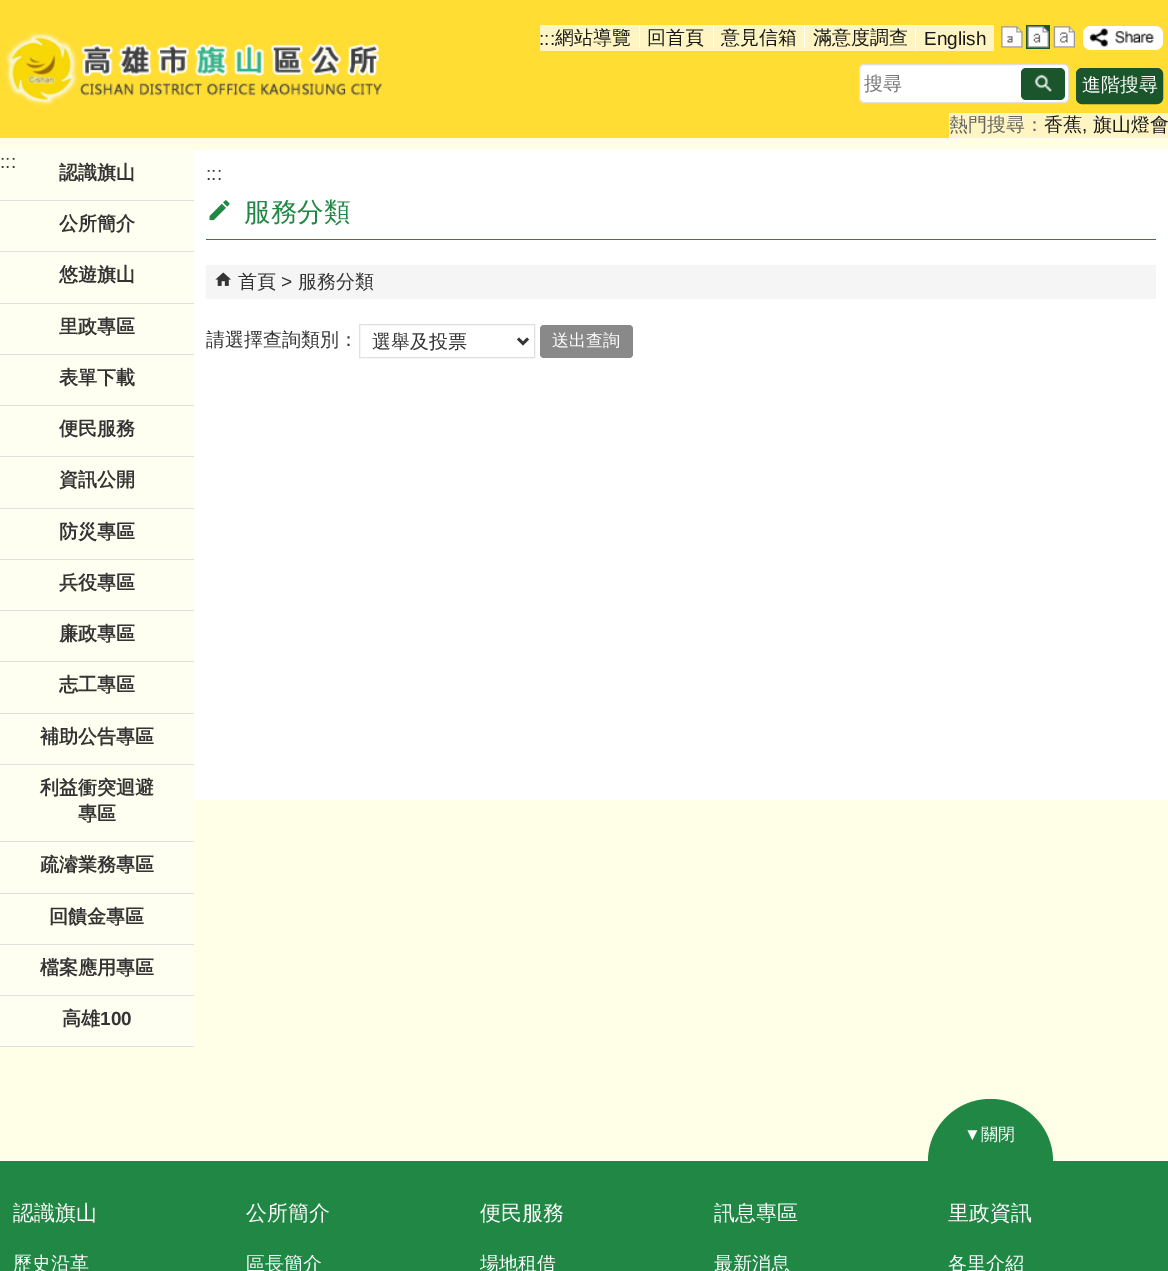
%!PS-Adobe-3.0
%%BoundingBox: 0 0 1168 1271
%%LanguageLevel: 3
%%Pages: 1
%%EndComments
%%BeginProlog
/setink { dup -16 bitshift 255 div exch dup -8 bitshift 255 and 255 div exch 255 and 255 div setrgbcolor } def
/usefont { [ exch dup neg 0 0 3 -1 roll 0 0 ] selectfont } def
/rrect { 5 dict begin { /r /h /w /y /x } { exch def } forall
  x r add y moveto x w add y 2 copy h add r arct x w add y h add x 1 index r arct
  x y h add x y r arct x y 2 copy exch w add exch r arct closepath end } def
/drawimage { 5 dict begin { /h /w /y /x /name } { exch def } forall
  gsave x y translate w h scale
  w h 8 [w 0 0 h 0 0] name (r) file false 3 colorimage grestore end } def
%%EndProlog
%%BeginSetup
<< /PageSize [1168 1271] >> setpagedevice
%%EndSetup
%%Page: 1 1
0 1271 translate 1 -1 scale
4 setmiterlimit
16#FFFFE7 setink
0 0 1168 1271 rectfill
[
    [949 138 219 1 16#FFFFF8]
    [0 0 1168 138 16#FFDD33]
    [949 113 219 25 16#FFF5C2]
] { aload pop setink rectfill } forall
(img1.raw) 5 32 378 74 drawimage
540 25 454 26 rectfill
/LiberationSans-Regular 19 usefont
16#1A1A1A setink
539 45 moveto (:::) show
/WenQuanYiZenHei-Medium 19 usefont
555 44 moveto (網站導覽) show
647 44 moveto (回首頁) show
16#FFFFFF setink
639 26 1 22 rectfill
16#1A1A1A setink
721 44 moveto (意見信箱) show
16#FFFFFF setink
713 26 1 22 rectfill
16#1A1A1A setink
813 44 moveto (滿意度調查) show
16#FFFFFF setink
804 26 1 22 rectfill
/LiberationSans-Regular 19 usefont
16#1A1A1A setink
924 45 moveto (English) show
16#FFFFFF setink
915 28 1 21 rectfill
(img2.raw) 1001 26 22 22 drawimage
16#1A552C setink
1026 25 24 24 rectfill
(img3.raw) 1027 26 22 22 drawimage
(img4.raw) 1053 26 22 22 drawimage
16#FFFFFF setink
1083 26 80 24 8 rrect fill
(img5.raw) 1089 28 65 19 drawimage
859.5 64.5 209 38 4.5 rrect gsave fill grestore
16#E0E0E0 setink
stroke
/WenQuanYiZenHei-Medium 19 usefont
16#757575 setink
864 90 moveto (搜尋) show
16#1A552C setink
1021 68 44 32 5 rrect fill
(img6.raw) 1034 74 18 18 drawimage
1076.5 68.5 86 35 5.5 rrect gsave fill grestore
stroke
16#FFFFFF setink
1082 91 moveto (進階搜尋) show
16#646464 setink
949 131 moveto (熱門搜尋：) show
16#1A1A1A setink
1044 131 moveto (香蕉) show
/LiberationSans-Regular 19 usefont
1082 131 moveto (,) show
/WenQuanYiZenHei-Medium 19 usefont
1093 131 moveto (旗山燈會) show
16#FFFFF1 setink
0 150 194 898 rectfill
/LiberationSans-Regular 19 usefont
16#343434 setink
0 168 moveto (:::) show
16#E0E0E0 setink
0 200 194 1 rectfill
/WenQuanYiZenHei-Bold 19 usefont
16#343434 setink
59 179 moveto (認識旗山) show
16#E0E0E0 setink
0 251 194 1 rectfill
16#343434 setink
59 230 moveto (公所簡介) show
16#E0E0E0 setink
0 303 194 1 rectfill
16#343434 setink
59 281 moveto (悠遊旗山) show
16#E0E0E0 setink
0 354 194 1 rectfill
16#343434 setink
59 333 moveto (里政專區) show
16#E0E0E0 setink
0 405 194 1 rectfill
16#343434 setink
59 384 moveto (表單下載) show
16#E0E0E0 setink
0 456 194 1 rectfill
16#343434 setink
59 435 moveto (便民服務) show
16#E0E0E0 setink
0 508 194 1 rectfill
16#343434 setink
59 486 moveto (資訊公開) show
16#E0E0E0 setink
0 559 194 1 rectfill
16#343434 setink
59 538 moveto (防災專區) show
16#E0E0E0 setink
0 610 194 1 rectfill
16#343434 setink
59 589 moveto (兵役專區) show
16#E0E0E0 setink
0 661 194 1 rectfill
16#343434 setink
59 640 moveto (廉政專區) show
16#E0E0E0 setink
0 713 194 1 rectfill
16#343434 setink
59 691 moveto (志工專區) show
16#E0E0E0 setink
0 764 194 1 rectfill
16#343434 setink
40 743 moveto (補助公告專區) show
16#E0E0E0 setink
0 841 194 1 rectfill
16#343434 setink
40 794 moveto (利益衝突迴避) show
78 820 moveto (專區) show
16#E0E0E0 setink
0 893 194 1 rectfill
16#343434 setink
40 871 moveto (疏濬業務專區) show
16#E0E0E0 setink
0 944 194 1 rectfill
16#343434 setink
49 923 moveto (回饋金專區) show
16#E0E0E0 setink
0 995 194 1 rectfill
16#343434 setink
40 974 moveto (檔案應用專區) show
16#E0E0E0 setink
0 1046 194 1 rectfill
16#343434 setink
62 1025 moveto (高雄) show
/LiberationSans-Bold 19 usefont
100 1025 moveto (100) show
16#FFFFFF setink
194 150 974 650 rectfill
/LiberationSans-Regular 19 usefont
16#343434 setink
206 180 moveto (:::) show
16#208844 setink
206 239 950 1 rectfill
(img7.raw) 209 200 21 21 drawimage
/WenQuanYiZenHei-Medium 26.5 usefont
244 221 moveto (服務分類) show
16#F5F5F5 setink
206 265 950 34 rectfill
(img8.raw) 215 272 16 14 drawimage
/WenQuanYiZenHei-Medium 19 usefont
16#343434 setink
238 288 moveto (首頁) show
/LiberationSans-Regular 19 usefont
281 288 moveto (>) show
/WenQuanYiZenHei-Medium 19 usefont
298 288 moveto (服務分類) show
206 346 moveto (請選擇查詢類別：) show
16#E0E0E0 setink
359.5 324.5 175 33 rectstroke
16#343434 setink
2.5 setlinewidth
518 338.5 moveto 523 343.5 lineto 528 338.5 lineto stroke
372 348 moveto (選舉及投票) show
16#898989 setink
540 325 93 33 4 rrect fill
/WenQuanYiZenHei-Medium 17 usefont
16#FFFFFF setink
552 346 moveto (送出查詢) show
16#208844 setink
0 1161 1168 110 rectfill
16#FFFFFF setink
0 1160 1168 1 rectfill
16#208844 setink
990 1099 moveto 991 1099 lineto 1025 1099 1053 1127 1053 1161 curveto 928 1161 lineto 928 1127 956 1099 990 1099 curveto closepath fill
/LiberationSans-Regular 17 usefont
16#FFFFFF setink
964 1140 moveto (▼) show
/WenQuanYiZenHei-Medium 17 usefont
981 1140 moveto (關閉) show
/WenQuanYiZenHei-Medium 21 usefont
13 1220 moveto (認識旗山) show
/WenQuanYiZenHei-Medium 19 usefont
13 1270 moveto (歷史沿革) show
/WenQuanYiZenHei-Medium 21 usefont
246 1220 moveto (公所簡介) show
/WenQuanYiZenHei-Medium 19 usefont
246 1270 moveto (區長簡介) show
/WenQuanYiZenHei-Medium 21 usefont
480 1220 moveto (便民服務) show
/WenQuanYiZenHei-Medium 19 usefont
480 1270 moveto (場地租借) show
/WenQuanYiZenHei-Medium 21 usefont
714 1220 moveto (訊息專區) show
/WenQuanYiZenHei-Medium 19 usefont
714 1270 moveto (最新消息) show
/WenQuanYiZenHei-Medium 21 usefont
948 1220 moveto (里政資訊) show
/WenQuanYiZenHei-Medium 19 usefont
948 1270 moveto (各里介紹) show
showpage
%%EOF
